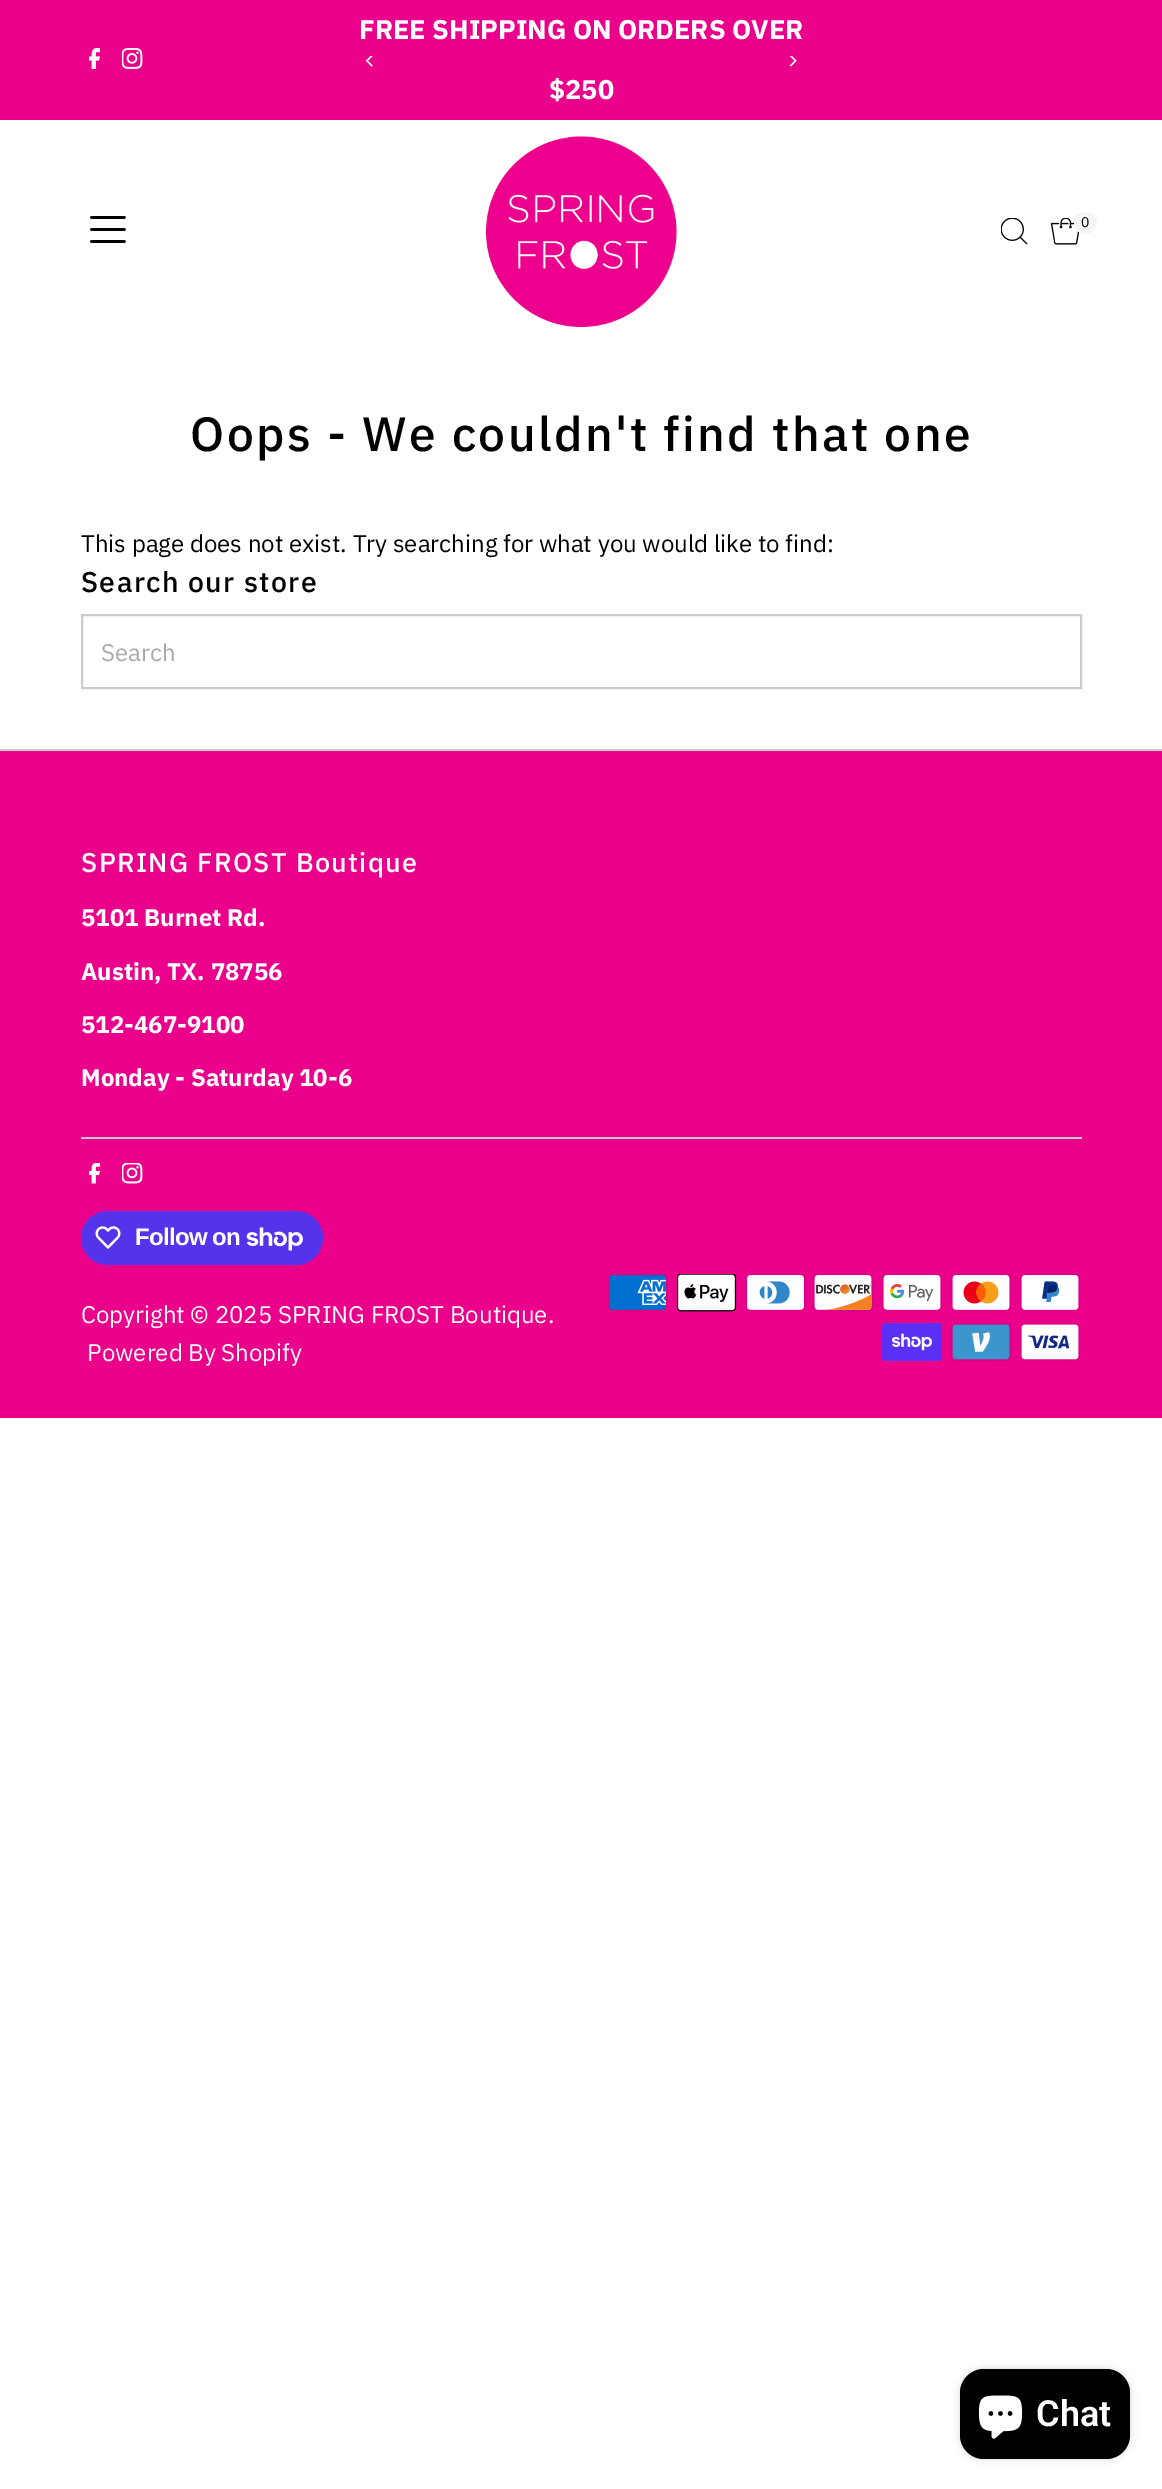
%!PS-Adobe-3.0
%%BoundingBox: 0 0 1162 2489
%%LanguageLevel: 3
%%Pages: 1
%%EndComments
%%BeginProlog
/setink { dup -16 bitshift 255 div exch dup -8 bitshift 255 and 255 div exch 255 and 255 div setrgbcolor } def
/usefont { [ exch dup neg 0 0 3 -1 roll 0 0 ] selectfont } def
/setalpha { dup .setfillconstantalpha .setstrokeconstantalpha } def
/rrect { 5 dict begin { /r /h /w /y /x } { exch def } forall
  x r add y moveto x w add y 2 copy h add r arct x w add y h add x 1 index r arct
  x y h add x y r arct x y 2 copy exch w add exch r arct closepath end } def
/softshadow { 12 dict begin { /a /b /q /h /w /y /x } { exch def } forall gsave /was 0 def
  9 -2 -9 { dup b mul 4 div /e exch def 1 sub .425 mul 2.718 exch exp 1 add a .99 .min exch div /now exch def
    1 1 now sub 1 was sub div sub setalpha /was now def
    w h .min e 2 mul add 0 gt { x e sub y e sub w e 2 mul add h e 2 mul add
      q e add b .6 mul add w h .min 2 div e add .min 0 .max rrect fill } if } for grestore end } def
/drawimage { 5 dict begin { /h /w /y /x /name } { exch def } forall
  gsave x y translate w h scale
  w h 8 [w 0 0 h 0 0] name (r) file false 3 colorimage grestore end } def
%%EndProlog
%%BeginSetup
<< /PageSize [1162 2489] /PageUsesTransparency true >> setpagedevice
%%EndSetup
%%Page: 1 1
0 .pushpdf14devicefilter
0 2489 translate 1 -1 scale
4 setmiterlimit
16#FFFFFF setink
0 0 1162 2489 rectfill
16#EB008C setink
0 0 1162 120 rectfill
(img1.raw) 89 48 12 21 drawimage
(img2.raw) 122 48 21 21 drawimage
/IBMPlexSans-Bold 27 usefont
16#FFFFFF setink
359 39 moveto (FREE SHIPPING ON ORDERS OVER) show
549 99 moveto ($250) show
(img3.raw) 365 56 8 11 drawimage
(img4.raw) 789 56 8 11 drawimage
(img5.raw) 90 216 36 27 drawimage
(img6.raw) 486 136 191 191 drawimage
(img7.raw) 1001 218 27 27 drawimage
(img8.raw) 1050 218 30 27 drawimage
16#F5F5F5 setink
1074 212 23 22 11 rrect fill
/IBMPlexSans-Regular 14 usefont
16#000000 setink
1081 227 moveto (0) show
/IBMPlexSans-Medium 48 usefont
190 451 moveto 2.4 0 (Oops - We couldn't find that one) ashow
/IBMPlexSans-Regular 24 usefont
81 552 moveto (This page does not exist. Try searching for what you would like to find:) show
/IBMPlexSans-Medium 28.5 usefont
81 592 moveto 1.4 0 (Search our store) ashow
16#CCCCCC setink
2 setlinewidth
82 615 999 73 rectstroke
/IBMPlexSans-Regular 24 usefont
16#AAAAAA setink
101 661 moveto (Search) show
16#EB008C setink
0 751 1162 667 rectfill
16#CCCCCC setink
0 749 1162 2 rectfill
/IBMPlexSans-Medium 27 usefont
16#FFFFFF setink
81 872 moveto 1.35 0 (SPRING FROST Boutique) ashow
/IBMPlexSans-Bold 24 usefont
[
    [(5101 Burnet Rd.) 81 926]
    [(Austin, TX. 78756) 81 980]
    [(512-467-9100) 81 1033]
    [(Monday - Saturday 10-6) 81 1086]
] { aload pop moveto show } forall
16#CCCCCC setink
81 1137 1001 2 rectfill
(img9.raw) 89 1163 12 21 drawimage
(img10.raw) 122 1163 21 21 drawimage
16#5433EB setink
81 1211 242 54 27 rrect fill
(img11.raw) 95 1226 26 23 drawimage
/LiberationSans-Bold 24 usefont
16#FFFFFF setink
135 1245 moveto -0.75 0 (Follow on) ashow
(img12.raw) 246 1227 57 24 drawimage
/IBMPlexSans-Regular 24 usefont
81 1323 moveto (Copyright © 2025 SPRING FROST Boutique.) show
87 1361 moveto (Powered By Shopify) show
(img13.raw) 608 1274 60 38 drawimage
(img14.raw) 677 1274 60 38 drawimage
(img15.raw) 746 1274 60 38 drawimage
(img16.raw) 813 1274 60 38 drawimage
(img17.raw) 882 1274 60 38 drawimage
(img18.raw) 951 1274 60 38 drawimage
(img19.raw) 1020 1274 60 38 drawimage
(img20.raw) 882 1323 60 38 drawimage
(img21.raw) 951 1323 60 38 drawimage
(img22.raw) 1020 1323 60 38 drawimage
16#000000 setink
960 2369 170 90 24 4 0.15 softshadow
960 2369 170 90 24 rrect fill
(img23.raw) 978 2395 45 44 drawimage
/Roboto-SemiBold 36 usefont
16#FFFFFF setink
1036 2426 moveto (Chat) show
.poppdf14devicefilter showpage
%%EOF
